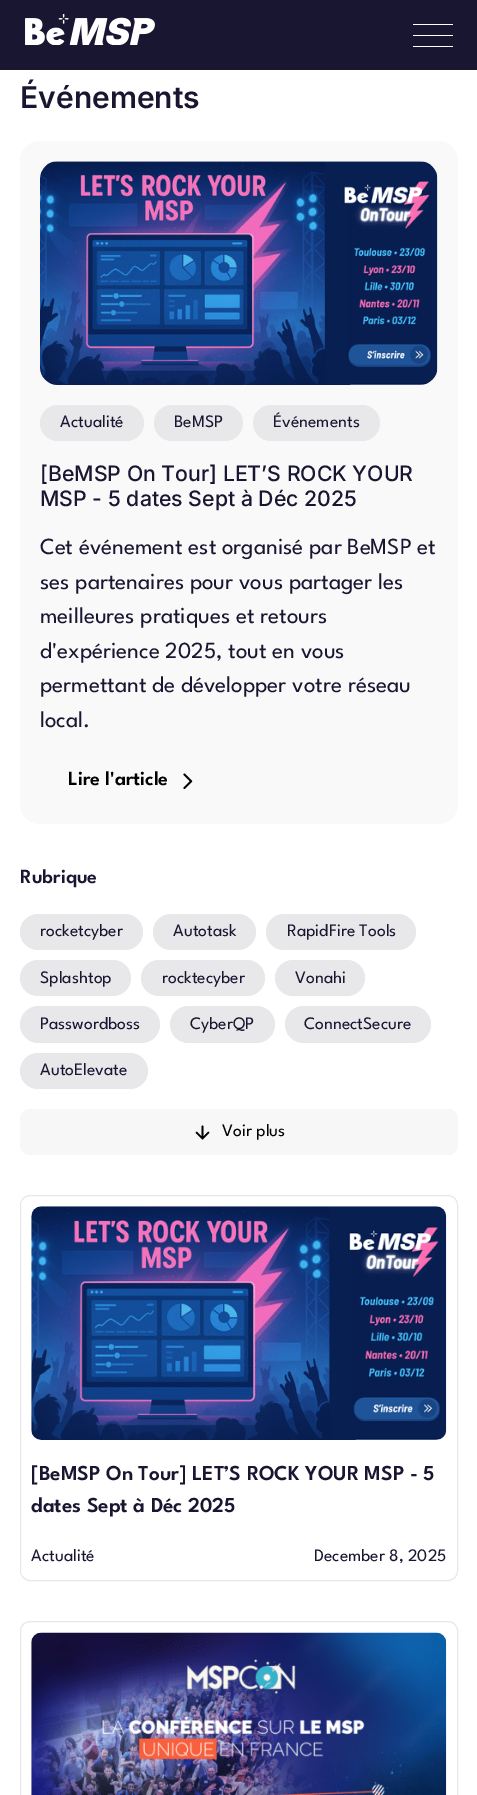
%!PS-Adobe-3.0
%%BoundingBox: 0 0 477 1795
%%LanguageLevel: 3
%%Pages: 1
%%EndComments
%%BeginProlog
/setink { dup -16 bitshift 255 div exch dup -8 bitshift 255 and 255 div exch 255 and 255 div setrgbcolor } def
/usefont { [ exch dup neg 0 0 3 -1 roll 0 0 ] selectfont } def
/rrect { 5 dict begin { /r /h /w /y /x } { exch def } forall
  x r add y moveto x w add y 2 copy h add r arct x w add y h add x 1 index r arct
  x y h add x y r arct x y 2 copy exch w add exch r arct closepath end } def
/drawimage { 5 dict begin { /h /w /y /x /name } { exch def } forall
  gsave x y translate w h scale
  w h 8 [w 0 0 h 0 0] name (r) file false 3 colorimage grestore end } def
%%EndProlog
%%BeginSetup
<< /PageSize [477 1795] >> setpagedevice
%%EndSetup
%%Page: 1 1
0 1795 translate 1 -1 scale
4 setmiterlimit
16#FFFFFF setink
0 0 477 1795 rectfill
16#191631 setink
0 0 477 70 rectfill
(img1.raw) 25 14 130 31 drawimage
16#FFFFFF setink
413 24 40 1 0.5 rrect fill
413 35 40 1 0.5 rrect fill
413 46 40 1 0.5 rrect fill
/Inter-SemiBold 30 usefont
16#191631 setink
20 108 moveto (Événements) show
16#F9F9F9 setink
20 141 438 683 20 rrect fill
(img2.raw) 40 161 398 224 drawimage
16#E8E8EA setink
40 405 104 36 18 rrect fill
/LeagueSpartan-Regular 17.5 usefont
16#191631 setink
60 427 moveto (Actualité) show
16#E8E8EA setink
154 405 89 36 18 rrect fill
16#191631 setink
174 427 moveto (BeMSP) show
16#E8E8EA setink
253 405 127 36 18 rrect fill
16#191631 setink
273 427 moveto (Événements) show
/Inter-Medium 21.25 usefont
40 481 moveto ([BeMSP On Tour] LET’S ROCK YOUR) show
40 506 moveto (MSP - 5 dates Sept à Déc 2025) show
/LeagueSpartan-Regular 23 usefont
[
    [(Cet événement est organisé par BeMSP et) 40 554]
    [(ses partenaires pour vous partager les) 40 589]
    [(meilleures pratiques et retours) 40 623]
    [(d'expérience 2025, tout en vous) 40 658]
    [(permettant de développer votre réseau) 40 692]
    [(local.) 40 727]
] { aload pop moveto show } forall
/LeagueSpartan-SemiBold 20 usefont
16#000000 setink
68 785 moveto (Lire l'article) show
(img3.raw) 183 773 10 16 drawimage
16#191631 setink
20 883 moveto (Rubrique) show
16#E8E8EA setink
20 914 123 36 18 rrect fill
/LeagueSpartan-Regular 17.5 usefont
16#191631 setink
40 936 moveto (rocketcyber) show
16#E8E8EA setink
153 914 103 36 18 rrect fill
16#191631 setink
173 936 moveto (Autotask) show
16#E8E8EA setink
266 914 150 36 18 rrect fill
16#191631 setink
287 936 moveto (RapidFire Tools) show
16#E8E8EA setink
20 960 111 36 18 rrect fill
16#191631 setink
40 983 moveto (Splashtop) show
16#E8E8EA setink
141 960 124 36 18 rrect fill
16#191631 setink
162 983 moveto (rocktecyber) show
16#E8E8EA setink
275 960 90 36 18 rrect fill
16#191631 setink
295 983 moveto (Vonahi) show
16#E8E8EA setink
20 1006 140 37 18.5 rrect fill
16#191631 setink
40 1029 moveto (Passwordboss) show
16#E8E8EA setink
170 1006 105 37 18.5 rrect fill
16#191631 setink
190 1029 moveto (CyberQP) show
16#E8E8EA setink
285 1006 146 37 18.5 rrect fill
16#191631 setink
304 1029 moveto (ConnectSecure) show
16#E8E8EA setink
20 1053 128 36 18 rrect fill
16#191631 setink
40 1075 moveto (AutoElevate) show
16#F7F7F7 setink
20 1109 438 46 10 rrect fill
16#000000 setink
1.7 setlinewidth
1 setlinecap
1 setlinejoin
202.5 1126.5 moveto 202.5 1138.5 lineto 208.5 1132.5 moveto 202.5 1138.5 lineto 196.5 1132.5 lineto stroke
222 1136 moveto (Voir plus) show
16#E8E8EA setink
1 setlinewidth
0 setlinecap
0 setlinejoin
20.5 1195.5 437 385 9.5 rrect stroke
(img4.raw) 31 1206 416 234 drawimage
/LeagueSpartan-SemiBold 21.25 usefont
16#191631 setink
31 1480 moveto ([BeMSP On Tour] LET’S ROCK YOUR MSP - 5) show
31 1512 moveto (dates Sept à Déc 2025) show
/LeagueSpartan-Regular 17.5 usefont
31 1561 moveto (Actualité) show
314 1561 moveto (December 8, 2025) show
16#E8E8EA setink
20.5 1621.5 437 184 9.5 rrect stroke
(img5.raw) 31 1632 416 163 drawimage
showpage
%%EOF
